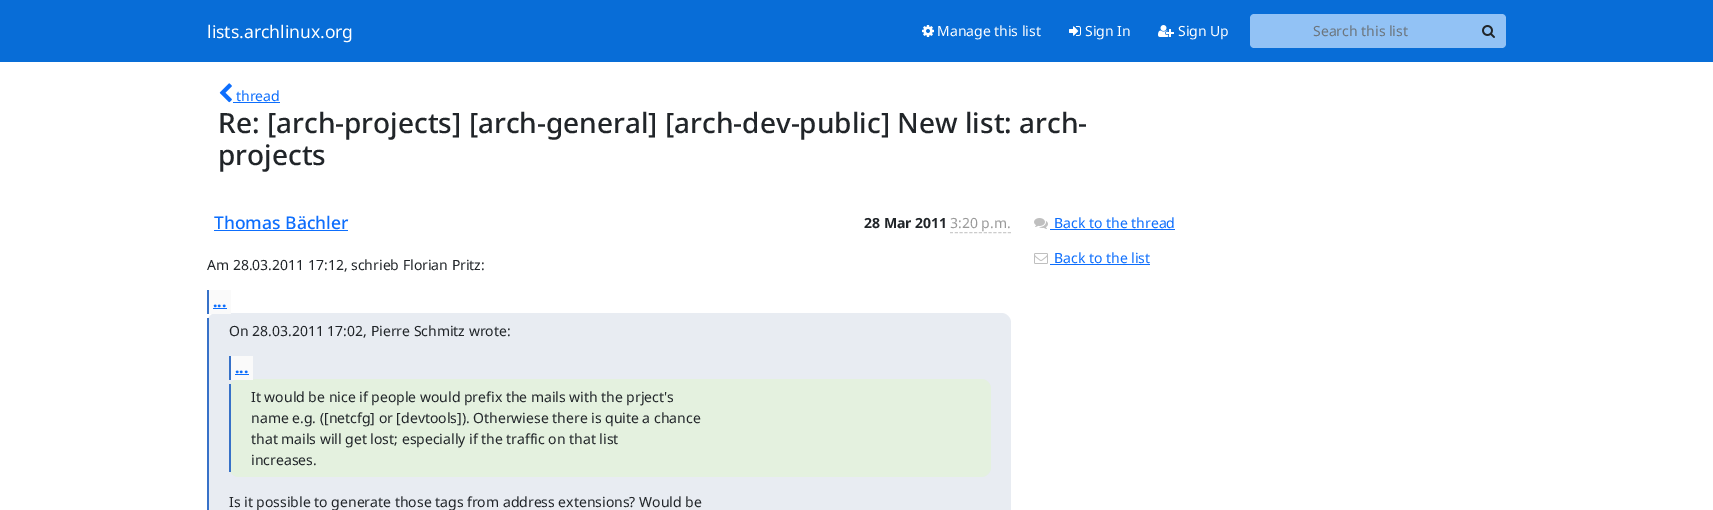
%!PS-Adobe-3.0
%%BoundingBox: 0 0 1713 510
%%LanguageLevel: 3
%%Pages: 1
%%EndComments
%%BeginProlog
/setink { dup -16 bitshift 255 div exch dup -8 bitshift 255 and 255 div exch 255 and 255 div setrgbcolor } def
/usefont { [ exch dup neg 0 0 3 -1 roll 0 0 ] selectfont } def
/rrect { 5 dict begin { /r /h /w /y /x } { exch def } forall
  x r add y moveto x w add y 2 copy h add r arct x w add y h add x 1 index r arct
  x y h add x y r arct x y 2 copy exch w add exch r arct closepath end } def
/drawimage { 5 dict begin { /h /w /y /x /name } { exch def } forall
  gsave x y translate w h scale
  w h 8 [w 0 0 h 0 0] name (r) file false 3 colorimage grestore end } def
%%EndProlog
%%BeginSetup
<< /PageSize [1713 510] >> setpagedevice
%%EndSetup
%%Page: 1 1
0 510 translate 1 -1 scale
4 setmiterlimit
16#FFFFFF setink
0 0 1713 510 rectfill
16#086DD7 setink
0 0 1713 62 rectfill
/NotoSans-Regular 17.5 usefont
16#FFFFFF setink
207 38 moveto (lists.archlinux.org) show
(img1.raw) 922 25 12 12 drawimage
/NotoSans-Regular 14 usefont
937 36 moveto (Manage this list) show
(img2.raw) 1069 26 12 10 drawimage
1085 36 moveto (Sign In) show
(img3.raw) 1158 25 16 12 drawimage
1178 36 moveto (Sign Up) show
16#92C2F5 setink
1254 14 moveto 1471 14 lineto 1471 48 lineto 1254 48 lineto 1252 48 1250 46 1250 44 curveto 1250 18 lineto 1250 16 1252 14 1254 14 curveto closepath fill
16#6C757D setink
1313 36 moveto (Search this list) show
16#92C2F5 setink
1470 14 moveto 1502 14 lineto 1504 14 1506 16 1506 18 curveto 1506 44 lineto 1506 46 1504 48 1502 48 curveto 1470 48 lineto closepath fill
(img4.raw) 1482 25 13 13 drawimage
(img5.raw) 219 83 13 20 drawimage
16#0D6EFD setink
236 101 moveto (thread) show
233 102 47 1 rectfill
/NotoSans-Medium 28 usefont
16#212529 setink
218 133 moveto (Re: [arch-projects] [arch-general] [arch-dev-public] New list: arch-) show
218 165 moveto (projects) show
/NotoSans-Medium 17.5 usefont
16#0D6EFD setink
214 229 moveto (Thomas Bächler) show
214 230 134 1 rectfill
/NotoSans-Bold 14 usefont
16#212529 setink
864 228 moveto (28 Mar 2011) show
/NotoSans-Regular 14 usefont
16#999999 setink
950 228 moveto (3:20 p.m.) show
16#CCCCCC setink
[3 1.83] 0 setdash
950 232.5 moveto 1011 232.5 lineto stroke
16#212529 setink
207 270 moveto (Am 28.03.2011 17:12, schrieb Florian Pritz:) show
16#E8ECF2 setink
207 313 804 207 10 rrect fill
16#FAFAFA setink
209 290 22 24 rectfill
/NotoSans-Bold 16 usefont
16#0D6EFD setink
213 307 moveto (...) show
[
    [207 290 2 24 16#3771C8]
    [213 308 14 1 16#0D6EFD]
    [207 318 2 192 16#3771C8]
] { aload pop setink rectfill } forall
/NotoSans-Regular 14 usefont
16#212529 setink
229 336 moveto (On 28.03.2011 17:02, Pierre Schmitz wrote:) show
16#E4F1DF setink
229 379 762 98 10 rrect fill
16#FAFAFA setink
231 356 22 24 rectfill
/NotoSans-Bold 16 usefont
16#0D6EFD setink
235 373 moveto (...) show
[
    [229 356 2 24 16#3771C8]
    [235 374 14 1 16#0D6EFD]
    [229 384 2 88 16#3771C8]
] { aload pop setink rectfill } forall
/NotoSans-Regular 14 usefont
16#212529 setink
[
    [(It would be nice if people would prefix the mails with the prject's) 251 402]
    [(name e.g. \([netcfg] or [devtools]\). Otherwiese there is quite a chance) 251 423]
    [(that mails will get lost; especially if the traffic on that list) 251 444]
    [(increases.) 251 465]
    [(Is it possible to generate those tags from address extensions? Would be) 229 507]
] { aload pop moveto show } forall
(img6.raw) 1034 218 14 11 drawimage
16#0D6EFD setink
1054 228 moveto (Back to the thread) show
1050 229 125 1 rectfill
(img7.raw) 1034 253 14 11 drawimage
1054 263 moveto (Back to the list) show
1050 264 100 1 rectfill
showpage
%%EOF
